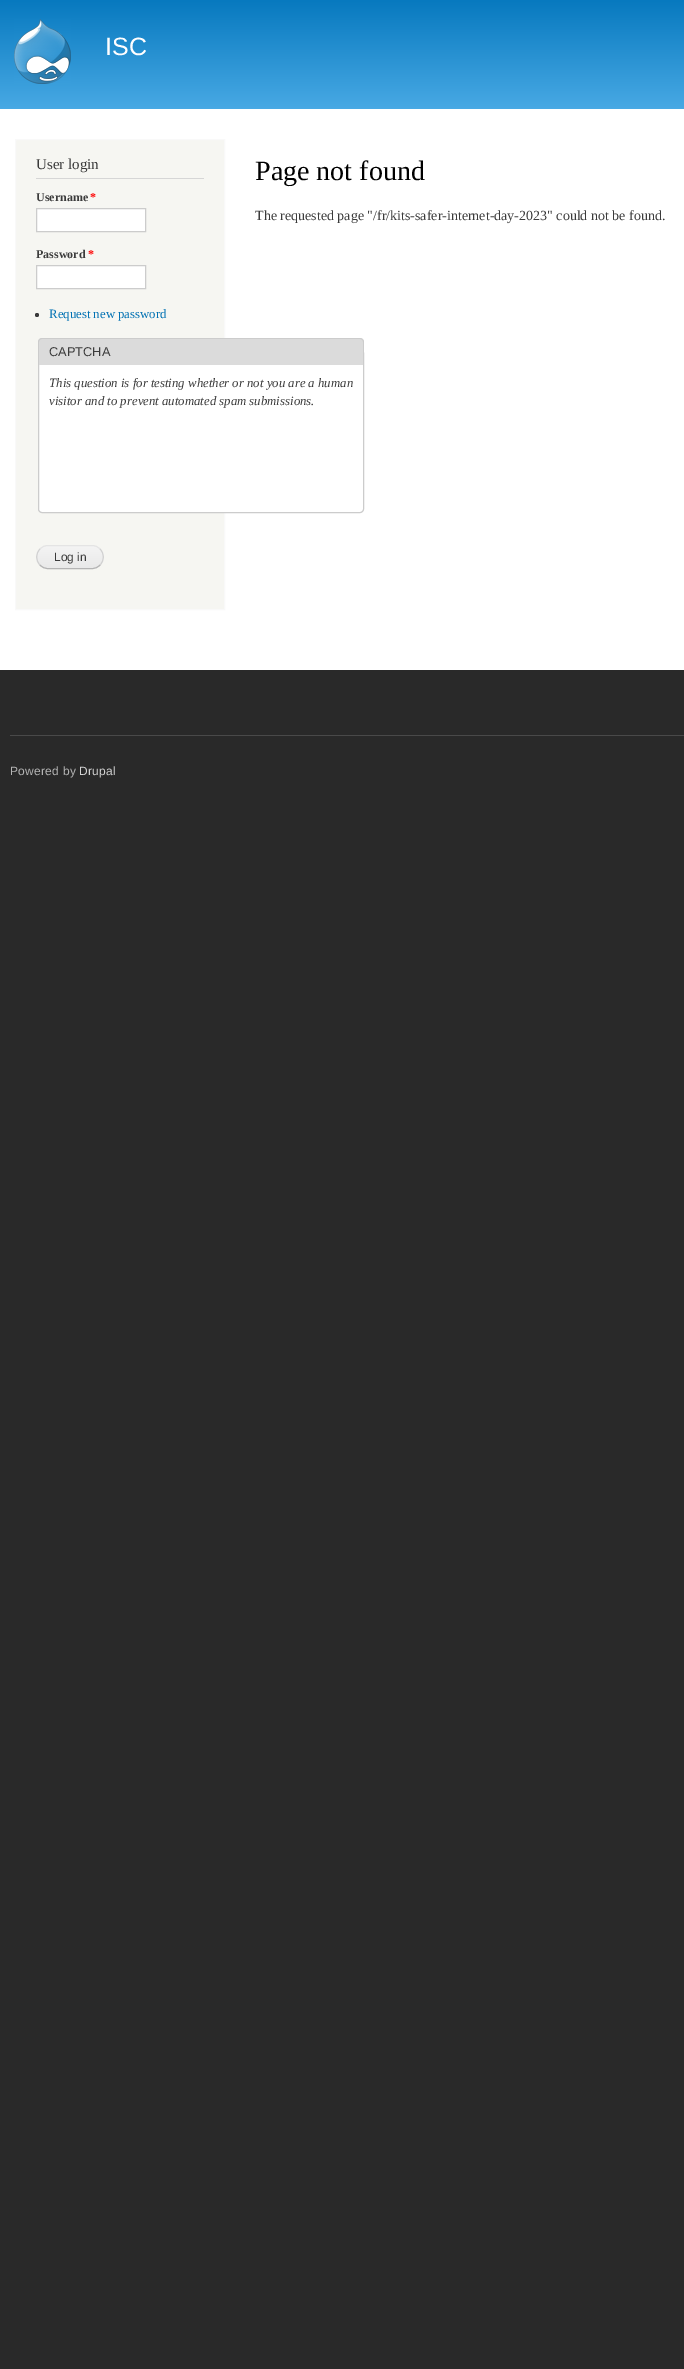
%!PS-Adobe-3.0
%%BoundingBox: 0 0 684 2369
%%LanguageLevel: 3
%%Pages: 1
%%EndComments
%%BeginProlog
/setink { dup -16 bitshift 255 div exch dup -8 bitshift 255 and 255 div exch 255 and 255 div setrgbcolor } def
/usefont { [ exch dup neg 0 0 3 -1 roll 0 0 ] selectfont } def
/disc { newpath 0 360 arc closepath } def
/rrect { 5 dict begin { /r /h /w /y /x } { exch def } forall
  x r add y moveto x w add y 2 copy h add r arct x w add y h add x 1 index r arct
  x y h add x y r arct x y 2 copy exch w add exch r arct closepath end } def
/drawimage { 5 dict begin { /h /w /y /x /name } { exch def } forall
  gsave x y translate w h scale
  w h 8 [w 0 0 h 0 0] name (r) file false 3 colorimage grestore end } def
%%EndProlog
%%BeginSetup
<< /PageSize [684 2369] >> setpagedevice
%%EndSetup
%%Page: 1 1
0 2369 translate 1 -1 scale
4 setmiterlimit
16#292929 setink
0 0 684 2369 rectfill
16#FFFFFF setink
0 109 684 561 rectfill
gsave 0 0 moveto 684 0 lineto 684 109 lineto 0 109 lineto closepath clip newpath
<< /ShadingType 2 /ColorSpace /DeviceRGB /Coords [480 0 480 109] /Extend [true true] /Function << /FunctionType 2 /Domain [0 1] /C0 [0.027 0.475 0.749] /C1 [0.282 0.663 0.894] /N 1 >> >> shfill grestore
(img1.raw) 14 19 57 65 drawimage
/LiberationSans-Regular 25 usefont
16#FFFEFF setink
105 55 moveto (ISC) show
16#F6F6F2 setink
15.5 139.5 moveto 224.5 139.5 lineto 224.5 609.5 lineto 15.5 609.5 lineto closepath gsave fill grestore
16#F9F9F9 setink
stroke
16#D6D6D6 setink
36 178 168 1 rectfill
/LiberationSerif-Regular 15 usefont
16#3B3B3B setink
36 169 moveto (User login) show
/LiberationSerif-Bold 12 usefont
36 201 moveto (Username) show
16#FF0000 setink
90 201 moveto (*) show
16#FFFFFF setink
36.5 208.5 moveto 145.5 208.5 lineto 145.5 231.5 lineto 36.5 231.5 lineto closepath gsave fill grestore
16#CCCCCC setink
stroke
16#3B3B3B setink
36 258 moveto (Password) show
16#FF0000 setink
88 258 moveto (*) show
16#FFFFFF setink
36.5 265.5 moveto 145.5 265.5 lineto 145.5 288.5 lineto 36.5 288.5 lineto closepath gsave fill grestore
16#CCCCCC setink
stroke
16#3B3B3B setink
37 315 2 disc fill
/LiberationSerif-Regular 12.8 usefont
16#0071B3 setink
49 318 moveto (Request new password) show
16#FFFFFF setink
38.5 349.5 325 163 3.5 rrect gsave fill grestore
16#CCCCCC setink
stroke
16#DBDBDB setink
42 338 moveto 360 338 lineto 362 338 364 340 364 342 curveto 364 365 lineto 38 365 lineto 38 342 lineto 38 340 40 338 42 338 curveto closepath fill
16#CCCCCC setink
42 338 moveto 360 338 lineto 362 338 364 340 364 342 curveto 364 365 lineto 38 365 lineto 38 342 lineto 38 340 40 338 42 338 curveto closepath 42 339 moveto 360 339 lineto 362 339 363 340 363 342 curveto 363 365 lineto 39 365 lineto 39 342 lineto 39 340 40 339 42 339 curveto closepath eofill
/LiberationSans-Regular 12.8 usefont
16#3B3B3B setink
49 356 moveto (CAPTCHA) show
/LiberationSerif-Italic 12.8 usefont
49 387 moveto (This question is for testing whether or not you are a human) show
49 405 moveto (visitor and to prevent automated spam submissions.) show
(img2.raw) 36 546 68 23 drawimage
16#E4E4E4 setink
40 549 moveto 42 546.5 45 545.5 48 545.5 curveto 92 545.5 lineto 95 545.5 98 546.5 100 549 curveto stroke
16#D2D2D2 setink
100 549 moveto 104.5 553.5 104.5 560.5 100 565 curveto stroke
16#B4B4B4 setink
100 565 moveto 98 567.5 95 568.5 92 568.5 curveto 48 568.5 lineto 45 568.5 42 567.5 40 565 curveto stroke
16#D2D2D2 setink
40 565 moveto 35.5 560.5 35.5 553.5 40 549 curveto stroke
/LiberationSans-Regular 12 usefont
16#3B3B3B setink
54 561 moveto (Log in) show
/LiberationSerif-Regular 28 usefont
16#000000 setink
255 180 moveto (Page not found) show
/LiberationSerif-Regular 14 usefont
16#3B3B3B setink
255 220 moveto (The requested page "/fr/kits-safer-internet-day-2023" could not be found.) show
16#494949 setink
10 735 674 1 rectfill
/LiberationSans-Regular 12 usefont
16#B4B4B4 setink
10 775 moveto 0.25 0 (Powered by) ashow
16#D4D4D4 setink
79 775 moveto 0.25 0 (Drupal) ashow
showpage
%%EOF
